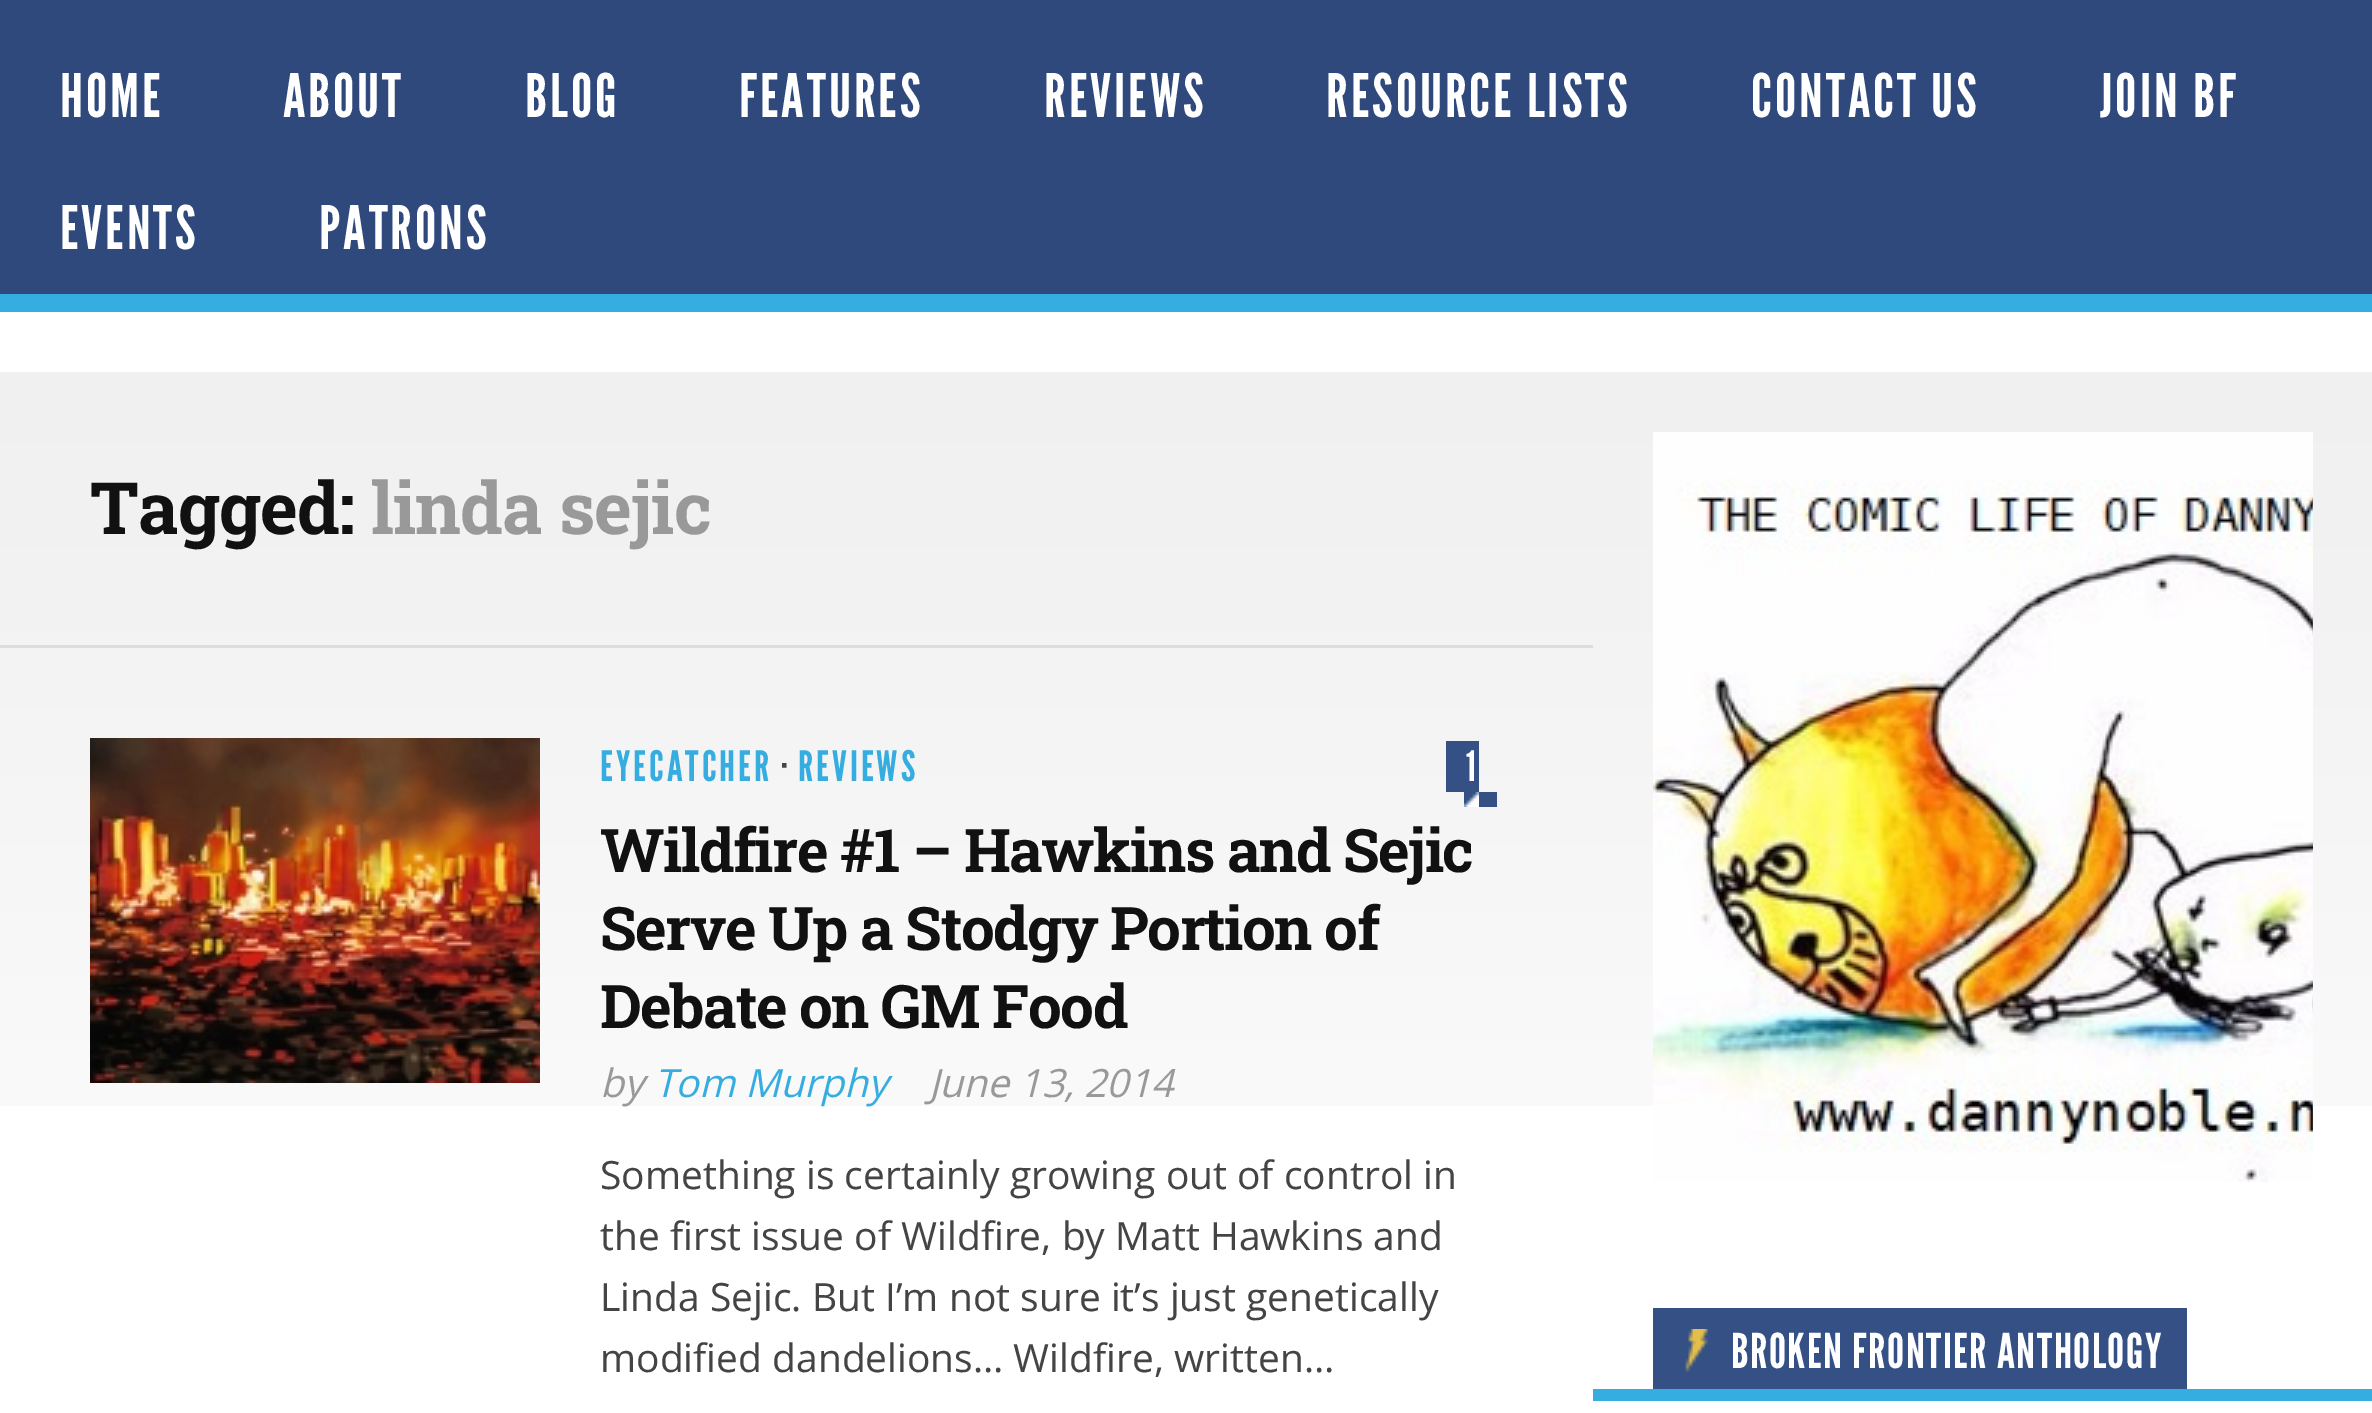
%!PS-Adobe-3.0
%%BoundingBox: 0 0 2372 1413
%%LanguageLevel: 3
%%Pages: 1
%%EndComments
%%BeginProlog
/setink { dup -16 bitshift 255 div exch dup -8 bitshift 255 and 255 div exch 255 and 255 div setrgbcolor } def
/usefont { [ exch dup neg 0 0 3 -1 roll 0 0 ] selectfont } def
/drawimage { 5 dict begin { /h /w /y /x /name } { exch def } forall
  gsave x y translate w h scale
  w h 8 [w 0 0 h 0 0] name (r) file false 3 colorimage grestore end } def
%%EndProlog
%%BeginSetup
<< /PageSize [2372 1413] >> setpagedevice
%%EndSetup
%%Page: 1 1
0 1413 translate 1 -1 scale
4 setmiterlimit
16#FFFFFF setink
0 0 2372 1413 rectfill
16#2F497C setink
0 0 2372 294 rectfill
/LeagueGothic-Regular 60 usefont
16#FFFFFF setink
60 117 moveto 3 0 (HOME) ashow
283 117 moveto 3 0 (ABOUT) ashow
525 117 moveto 3 0 (BLOG) ashow
739 117 moveto 3 0 (FEATURES) ashow
1044 117 moveto 3 0 (REVIEWS) ashow
1326 117 moveto 3 0 (RESOURCE LISTS) ashow
1751 117 moveto 3 0 (CONTACT US) ashow
2100 117 moveto 3 0 (JOIN BF) ashow
60 249 moveto 3 0 (EVENTS) ashow
319 249 moveto 3 0 (PATRONS) ashow
16#35ADE0 setink
0 294 2372 18 rectfill
(img1.raw) 0 372 2372 734 drawimage
16#DDDDDD setink
0 645 1593 3 rectfill
/RobotoSlab-Bold 72 usefont
16#111111 setink
90 534 moveto -0.9 0 (Tagged:) ashow
16#999999 setink
371 534 moveto -0.9 0 (linda sejic) ashow
(img2.raw) 90 738 450 345 drawimage
/LeagueGothic-Regular 42 usefont
16#35ADE0 setink
600 781 moveto 3 0 (EYECATCHER) ashow
16#444444 setink
782 781 moveto 3 0 (·) ashow
16#35ADE0 setink
798 781 moveto 3 0 (REVIEWS) ashow
16#355085 setink
1446 741 33 51 rectfill
1464 792 33 15 rectfill
16#FFFFFF setink
1466 781 moveto 3 0 (1) ashow
(img3.raw) 1464 792 15 15 drawimage
/RobotoSlab-Bold 60 usefont
16#111111 setink
600 872 moveto -1.5 0 (Wildfire #1 – Hawkins and Sejic) ashow
600 950 moveto -1.5 0 (Serve Up a Stodgy Portion of) ashow
600 1028 moveto -1.5 0 (Debate on GM Food) ashow
/OpenSans-Italic 39 usefont
16#999999 setink
600 1097 moveto (by) show
16#35ADE0 setink
654 1097 moveto (Tom Murphy) show
16#999999 setink
929 1097 moveto (June 13, 2014) show
/OpenSans-Regular 39 usefont
16#444444 setink
[
    [(Something is certainly growing out of control in) 600 1189]
    [(the first issue of Wildfire, by Matt Hawkins and) 600 1250]
    [(Linda Sejic. But I’m not sure it’s just genetically) 600 1311]
    [(modified dandelions… Wildfire, written…) 600 1372]
] { aload pop moveto show } forall
(img4.raw) 1653 432 660 750 drawimage
16#35ADE0 setink
1593 1389 779 12 rectfill
16#355085 setink
1653 1308 534 81 rectfill
(img5.raw) 1685 1329 23 43 drawimage
/LeagueGothic-Regular 48 usefont
16#FFFFFF setink
1731 1368 moveto 1.5 0 (BROKEN FRONTIER ANTHOLOGY) ashow
showpage
%%EOF
